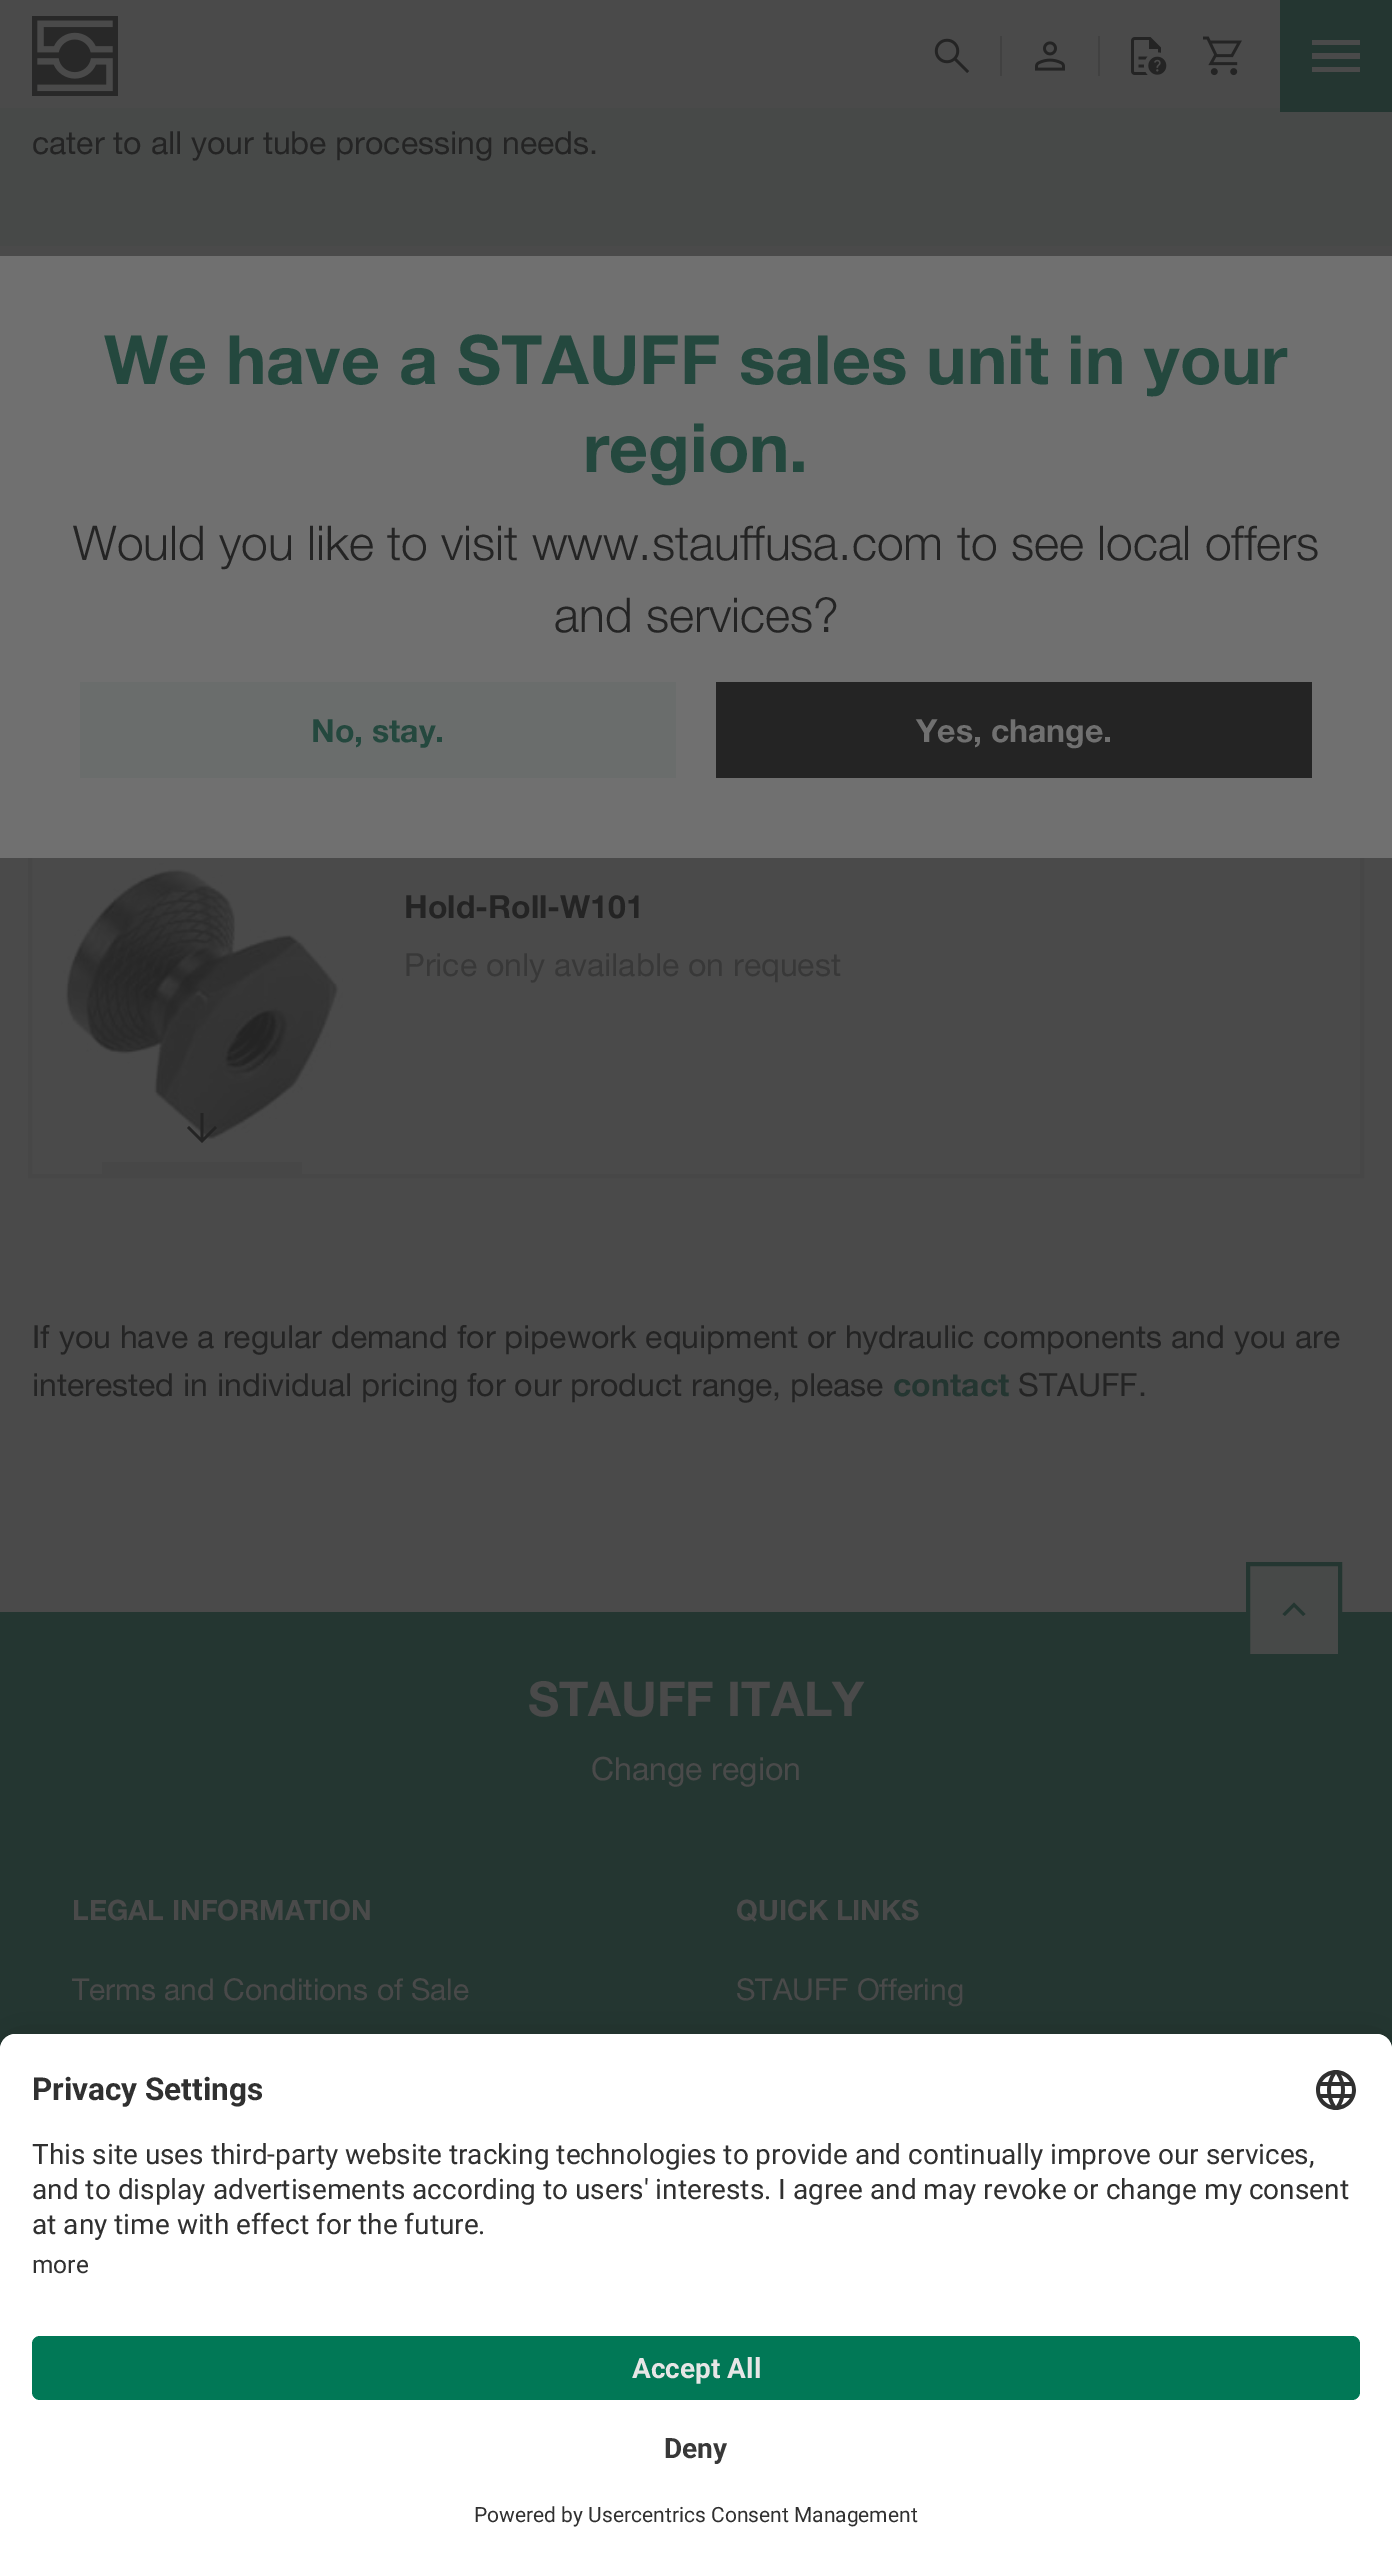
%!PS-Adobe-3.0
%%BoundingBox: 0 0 1392 2559
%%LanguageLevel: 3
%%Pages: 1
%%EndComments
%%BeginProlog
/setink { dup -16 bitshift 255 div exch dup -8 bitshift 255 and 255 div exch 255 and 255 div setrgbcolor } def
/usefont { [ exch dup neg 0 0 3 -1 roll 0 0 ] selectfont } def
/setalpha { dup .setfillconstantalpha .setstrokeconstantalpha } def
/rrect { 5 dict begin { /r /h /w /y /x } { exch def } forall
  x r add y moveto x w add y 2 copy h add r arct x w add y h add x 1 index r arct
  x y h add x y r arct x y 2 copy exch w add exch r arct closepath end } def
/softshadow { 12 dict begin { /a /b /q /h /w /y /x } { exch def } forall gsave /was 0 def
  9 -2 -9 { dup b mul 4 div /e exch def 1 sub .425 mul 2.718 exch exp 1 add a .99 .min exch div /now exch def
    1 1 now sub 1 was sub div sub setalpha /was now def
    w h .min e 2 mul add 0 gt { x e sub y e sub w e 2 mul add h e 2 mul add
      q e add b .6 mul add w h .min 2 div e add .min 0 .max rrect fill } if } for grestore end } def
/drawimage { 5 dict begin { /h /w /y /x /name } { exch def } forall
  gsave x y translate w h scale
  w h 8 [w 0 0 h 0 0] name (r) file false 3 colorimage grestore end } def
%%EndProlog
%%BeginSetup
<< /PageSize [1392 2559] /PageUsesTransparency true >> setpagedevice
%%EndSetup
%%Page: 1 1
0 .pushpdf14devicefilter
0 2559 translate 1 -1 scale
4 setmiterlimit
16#4A4A4A setink
0 0 1392 2559 rectfill
16#474948 setink
0 108 1280 4 rectfill
(img1.raw) 32 16 86 80 drawimage
(img2.raw) 934 38 36 35 drawimage
16#414141 setink
1000 36 2 40 rectfill
(img3.raw) 1035 41 30 30 drawimage
1098 36 2 40 rectfill
(img4.raw) 1131 37 36 38 drawimage
(img5.raw) 1203 36 39 40 drawimage
16#243631 setink
1280 0 112 112 rectfill
16#4A4A4A setink
1312 72 moveto 1360 72 lineto 1360 67 lineto 1312 67 lineto closepath 1312 59 moveto 1360 59 lineto 1360 53 lineto 1312 53 lineto closepath 1312 40 moveto 1312 45 lineto 1360 45 lineto 1360 40 lineto closepath fill
16#474948 setink
0 112 1392 134 rectfill
/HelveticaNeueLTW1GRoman-Regular 32 usefont
16#242424 setink
32 154 moveto (cater to all your tube processing needs.) show
16#474747 setink
4 setlinewidth
30 832 1332 344 rectstroke
16#707070 setink
0 256 1392 602 rectfill
/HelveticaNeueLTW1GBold-Bold 68 usefont
16#24483E setink
104 384 moveto (We have a STAUFF sales unit in your) show
583 472 moveto (region.) show
/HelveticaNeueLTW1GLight-Light 48 usefont
16#242424 setink
73 560 moveto (Would you like to visit www.stauffusa.com to see local offers) show
554 632 moveto (and services?) show
16#6A6D6C setink
80 682 596 96 rectfill
/HelveticaNeueLTW1GBold-Bold 32 usefont
16#24483E setink
311 742 moveto (No, stay.) show
16#242424 setink
716 682 596 96 rectfill
16#707070 setink
916 742 moveto (Yes, change.) show
(img6.raw) 61 863 282 281 drawimage
16#474747 setink
102 1162 200 12 rectfill
16#242424 setink
202 1143 moveto 187 1128 lineto 189 1126 lineto 200.5 1137.5 lineto 200.5 1113 lineto 203.5 1113 lineto 203.5 1137.5 lineto 215 1126 lineto 217 1128 lineto closepath fill
404 918 moveto (Hold-Roll-W101) show
/HelveticaNeueLTW1GRoman-Regular 32 usefont
16#383838 setink
404 976 moveto (Price only available on request) show
16#242424 setink
32 1348 moveto (If you have a regular demand for pipework equipment or hydraulic components and you are) show
32 1396 moveto (interested in individual pricing for our product range, please) show
/HelveticaNeueLTW1GBold-Bold 32 usefont
16#243631 setink
893 1396 moveto (contact) show
/HelveticaNeueLTW1GRoman-Regular 32 usefont
16#242424 setink
1018 1396 moveto (STAUFF.) show
16#243631 setink
0 1612 1392 438 rectfill
16#474948 setink
1248 1564 moveto 1340 1564 lineto 1340 1656 lineto 1248 1656 lineto closepath gsave fill grestore
16#243631 setink
stroke
1285 1616 moveto 1282.5 1614 lineto 1294 1602.5 lineto 1305.5 1614 lineto 1303 1616 lineto 1294 1607 lineto closepath fill
/HelveticaNeueLTW1GBold-Bold 48 usefont
16#4A4A4A setink
528 1716 moveto (STAUFF ITALY) show
/HelveticaNeueLTW1GRoman-Regular 32 usefont
591 1780 moveto (Change region) show
/HelveticaNeueLTW1GBold-Bold 28 usefont
72 1920 moveto (LEGAL INFORMATION) show
/HelveticaNeueLTW1GRoman-Regular 30 usefont
72 2000 moveto (Terms and Conditions of Sale) show
/HelveticaNeueLTW1GBold-Bold 28 usefont
736 1920 moveto (QUICK LINKS) show
/HelveticaNeueLTW1GRoman-Regular 30 usefont
736 2000 moveto (STAUFF Offering) show
16#000000 setink
0 2044 1392 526 16 26 0.22 softshadow
16#FFFFFF setink
16 2034 moveto 1376 2034 lineto 1385 2034 1392 2041 1392 2050 curveto 1392 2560 lineto 0 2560 lineto 0 2050 lineto 0 2041 7 2034 16 2034 curveto closepath fill
16 2034 moveto 1376 2034 lineto 1385 2034 1392 2041 1392 2050 curveto 1392 2312 lineto 0 2312 lineto 0 2050 lineto 0 2041 7 2034 16 2034 curveto closepath fill
/Roboto-Bold 31.5 usefont
16#303030 setink
32 2100 moveto (Privacy Settings) show
(img7.raw) 1316 2070 40 40 drawimage
/Roboto-Regular 28 usefont
[
    [(This site uses third-party website tracking technologies to provide and continually improve our services,) 32 2164]
    [(and to display advertisements according to users' interests. I agree and may revoke or change my consent) 32 2199]
    [(at any time with effect for the future.) 32 2234]
] { aload pop moveto show } forall
/Roboto-Regular 24.5 usefont
32 2273 moveto (more) show
16#017856 setink
32 2336 1328 64 8 rrect fill
/Roboto-Bold 28 usefont
16#E6E6E6 setink
632 2378 moveto (Accept All) show
16#383838 setink
664 2458 moveto (Deny) show
/Roboto-Regular 21 usefont
16#303030 setink
474 2522 moveto (Powered by Usercentrics Consent Management) show
.poppdf14devicefilter showpage
%%EOF
